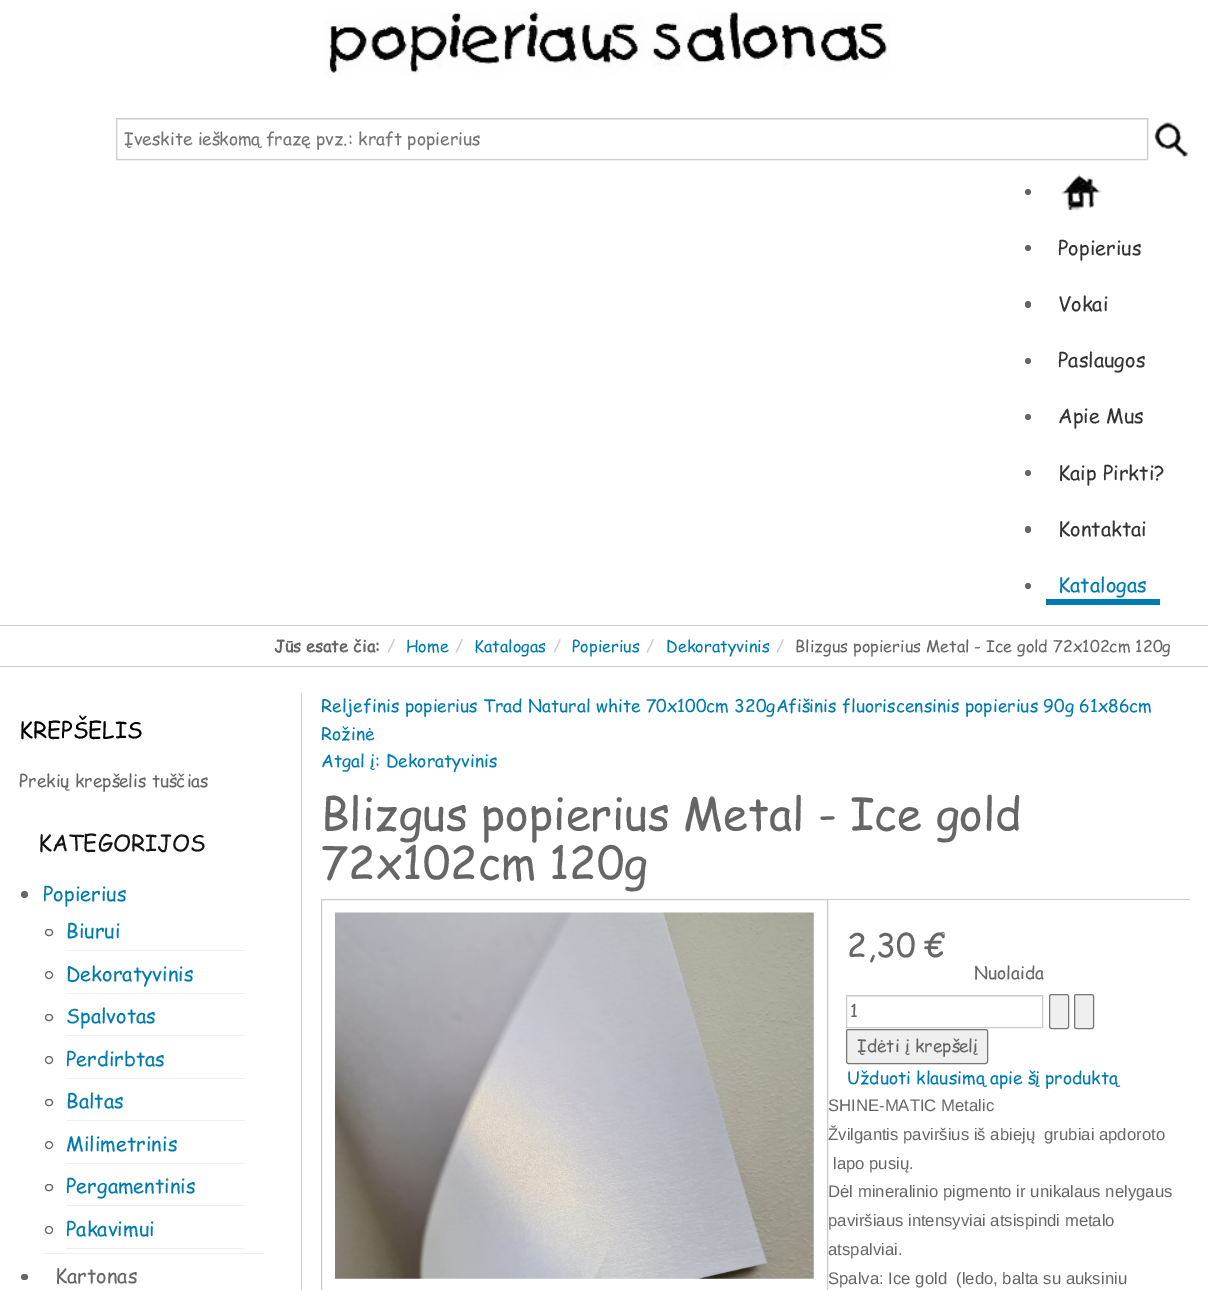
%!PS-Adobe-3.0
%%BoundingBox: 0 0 1208 1290
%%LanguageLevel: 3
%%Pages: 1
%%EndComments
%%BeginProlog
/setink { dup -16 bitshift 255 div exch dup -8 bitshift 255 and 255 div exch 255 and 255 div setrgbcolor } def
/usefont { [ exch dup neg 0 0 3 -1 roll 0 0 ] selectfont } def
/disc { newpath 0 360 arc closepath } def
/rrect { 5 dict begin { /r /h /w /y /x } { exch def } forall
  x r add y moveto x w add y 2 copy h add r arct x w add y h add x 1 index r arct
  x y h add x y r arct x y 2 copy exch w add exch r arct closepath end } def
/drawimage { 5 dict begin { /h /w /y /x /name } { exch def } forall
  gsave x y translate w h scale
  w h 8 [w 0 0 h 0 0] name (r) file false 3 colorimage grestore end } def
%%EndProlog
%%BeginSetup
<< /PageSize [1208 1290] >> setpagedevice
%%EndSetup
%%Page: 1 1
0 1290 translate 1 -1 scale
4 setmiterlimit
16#FFFFFF setink
0 0 1208 1290 rectfill
16#CCCCCC setink
0 625 1208 1 rectfill
(img1.raw) 324 10 567 66 drawimage
16#ECECEC setink
118 119 1028 1 rectfill
16#CCCCCC setink
116.5 118.5 1031 41 rectstroke
/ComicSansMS-Regular 17.5 usefont
16#757575 setink
124 145 moveto (Įveskite ieškomą frazę pvz.: kraft popierius) show
(img2.raw) 1153 122 35 35 drawimage
16#666666 setink
1028 192 3 disc fill
(img3.raw) 1061 173 41 38 drawimage
1028 248 3 disc fill
/ComicSansMS-Regular 20 usefont
16#333333 setink
1058 255 moveto (Popierius) show
16#666666 setink
1025 301 6 7 3 rrect fill
16#333333 setink
1058 311 moveto (Vokai) show
16#666666 setink
1028 361 3 disc fill
16#333333 setink
1058 367 moveto (Paslaugos) show
16#666666 setink
1028 417 3 disc fill
16#333333 setink
1058 423 moveto (Apie Mus) show
16#666666 setink
1028 473 3 disc fill
16#333333 setink
1058 480 moveto (Kaip Pirkti?) show
16#666666 setink
1025 526 6 7 3 rrect fill
16#333333 setink
1058 536 moveto (Kontaktai) show
16#666666 setink
1028 586 3 disc fill
16#007BAF setink
1058 592 moveto (Katalogas) show
1046 599 114 6 rectfill
16#CCCCCC setink
0 666 1208 1 rectfill
/ComicSansMS-Bold 16.25 usefont
16#666666 setink
274 652 moveto (Jūs esate čia:) show
/ComicSansMS-Regular 16.25 usefont
16#CCCCCC setink
387 652 moveto (/) show
16#007BAF setink
406 652 moveto (Home) show
16#CCCCCC setink
455 652 moveto (/) show
16#007BAF setink
474 652 moveto (Katalogas) show
16#CCCCCC setink
553 652 moveto (/) show
16#007BAF setink
572 652 moveto (Popierius) show
16#CCCCCC setink
646 652 moveto (/) show
16#007BAF setink
666 652 moveto (Dekoratyvinis) show
16#CCCCCC setink
776 652 moveto (/) show
16#666666 setink
795 652 moveto (Blizgus popierius Metal - Ice gold 72x102cm 120g) show
16#CCCCCC setink
301 693 1 597 rectfill
/ComicSansMS-Regular 22.5 usefont
16#000000 setink
19 738 moveto (KREPŠELIS) show
/ComicSansMS-Regular 17.5 usefont
16#666666 setink
19 787 moveto (Prekių krepšelis tuščias) show
/ComicSansMS-Regular 22.5 usefont
16#151515 setink
38 851 moveto (KATEGORIJOS) show
16#F0F0F0 setink
43 1253 221 1 rectfill
16#666666 setink
24.5 894.5 3.5 disc fill
/ComicSansMS-Regular 20 usefont
16#007BAF setink
43 901 moveto (Popierius) show
16#F0F0F0 setink
66 950 179 1 rectfill
16#666666 setink
45.5 929.5 7 6 3 rrect stroke
16#007BAF setink
66 938 moveto (Biurui) show
16#F0F0F0 setink
66 993 179 1 rectfill
16#666666 setink
49 975 3.5 disc stroke
16#007BAF setink
66 981 moveto (Dekoratyvinis) show
16#F0F0F0 setink
66 1035 179 1 rectfill
16#666666 setink
45.5 1014.5 7 6 3 rrect stroke
16#007BAF setink
66 1023 moveto (Spalvotas) show
16#F0F0F0 setink
66 1078 179 1 rectfill
16#666666 setink
49 1060 3.5 disc stroke
16#007BAF setink
66 1066 moveto (Perdirbtas) show
16#F0F0F0 setink
66 1120 179 1 rectfill
16#666666 setink
45.5 1099.5 7 6 3 rrect stroke
16#007BAF setink
66 1108 moveto (Baltas) show
16#F0F0F0 setink
66 1163 179 1 rectfill
16#666666 setink
49 1145 3.5 disc stroke
16#007BAF setink
66 1151 moveto (Milimetrinis) show
16#F0F0F0 setink
66 1205 179 1 rectfill
16#666666 setink
45.5 1184.5 7 6 3 rrect stroke
16#007BAF setink
66 1193 moveto (Pergamentinis) show
16#F0F0F0 setink
66 1248 179 1 rectfill
16#666666 setink
49 1230 3.5 disc stroke
16#007BAF setink
66 1236 moveto (Pakavimui) show
16#666666 setink
21 1274 7 6 3 rrect fill
55 1283 moveto (Kartonas) show
/ComicSansMS-Regular 17.5 usefont
16#007BAF setink
[
    [(Reljefinis popierius Trad Natural white 70x100cm 320gAfišinis fluoriscensinis popierius 90g 61x86cm) 321 712]
    [(Rožinė) 321 740]
    [(Atgal į: Dekoratyvinis) 321 767]
] { aload pop moveto show } forall
/ComicSansMS-Regular 45 usefont
16#666666 setink
321 830 moveto (Blizgus popierius Metal - Ice gold) show
321 879 moveto (72x102cm 120g) show
16#CCCCCC setink
321.5 899.5 506 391 rectstroke
(img4.raw) 335 912 479 367 drawimage
/ComicSansMS-Regular 32.5 usefont
16#666666 setink
847 957 moveto (2,30 €) show
/ComicSansMS-Regular 17.5 usefont
974 979 moveto (Nuolaida) show
16#ECECEC setink
848 996 193 1 rectfill
16#CCCCCC setink
846.5 995.5 196 32 rectstroke
16#666666 setink
850 1017 moveto (1) show
16#EFEFEF setink
1049.5 994.5 19 34 2 rrect gsave fill grestore
16#767676 setink
stroke
16#EFEFEF setink
1074.5 994.5 19 34 2 rrect gsave fill grestore
16#767676 setink
stroke
16#EFEFEF setink
846.5 1029.5 141 34 2 rrect gsave fill grestore
16#767676 setink
stroke
16#666666 setink
857 1052 moveto (Įdėti į krepšelį) show
16#007BAF setink
847 1084 moveto (Užduoti klausimą apie šį produktą) show
16#CCCCCC setink
828 899 362 1 rectfill
/LiberationSans-Regular 16.7 usefont
16#666666 setink
[
    [(SHINE-MATIC Metalic) 828 1111]
    [(Žvilgantis paviršius iš abiejų  grubiai apdoroto) 828 1140]
    [(lapo pusių.) 833 1169]
    [(Dėl mineralinio pigmento ir unikalaus nelygaus) 828 1197]
    [(paviršiaus intensyviai atsispindi metalo) 828 1226]
    [(atspalviai.) 828 1255]
    [(Spalva: Ice gold  \(ledo, balta su auksiniu) 828 1284]
] { aload pop moveto show } forall
showpage
%%EOF
